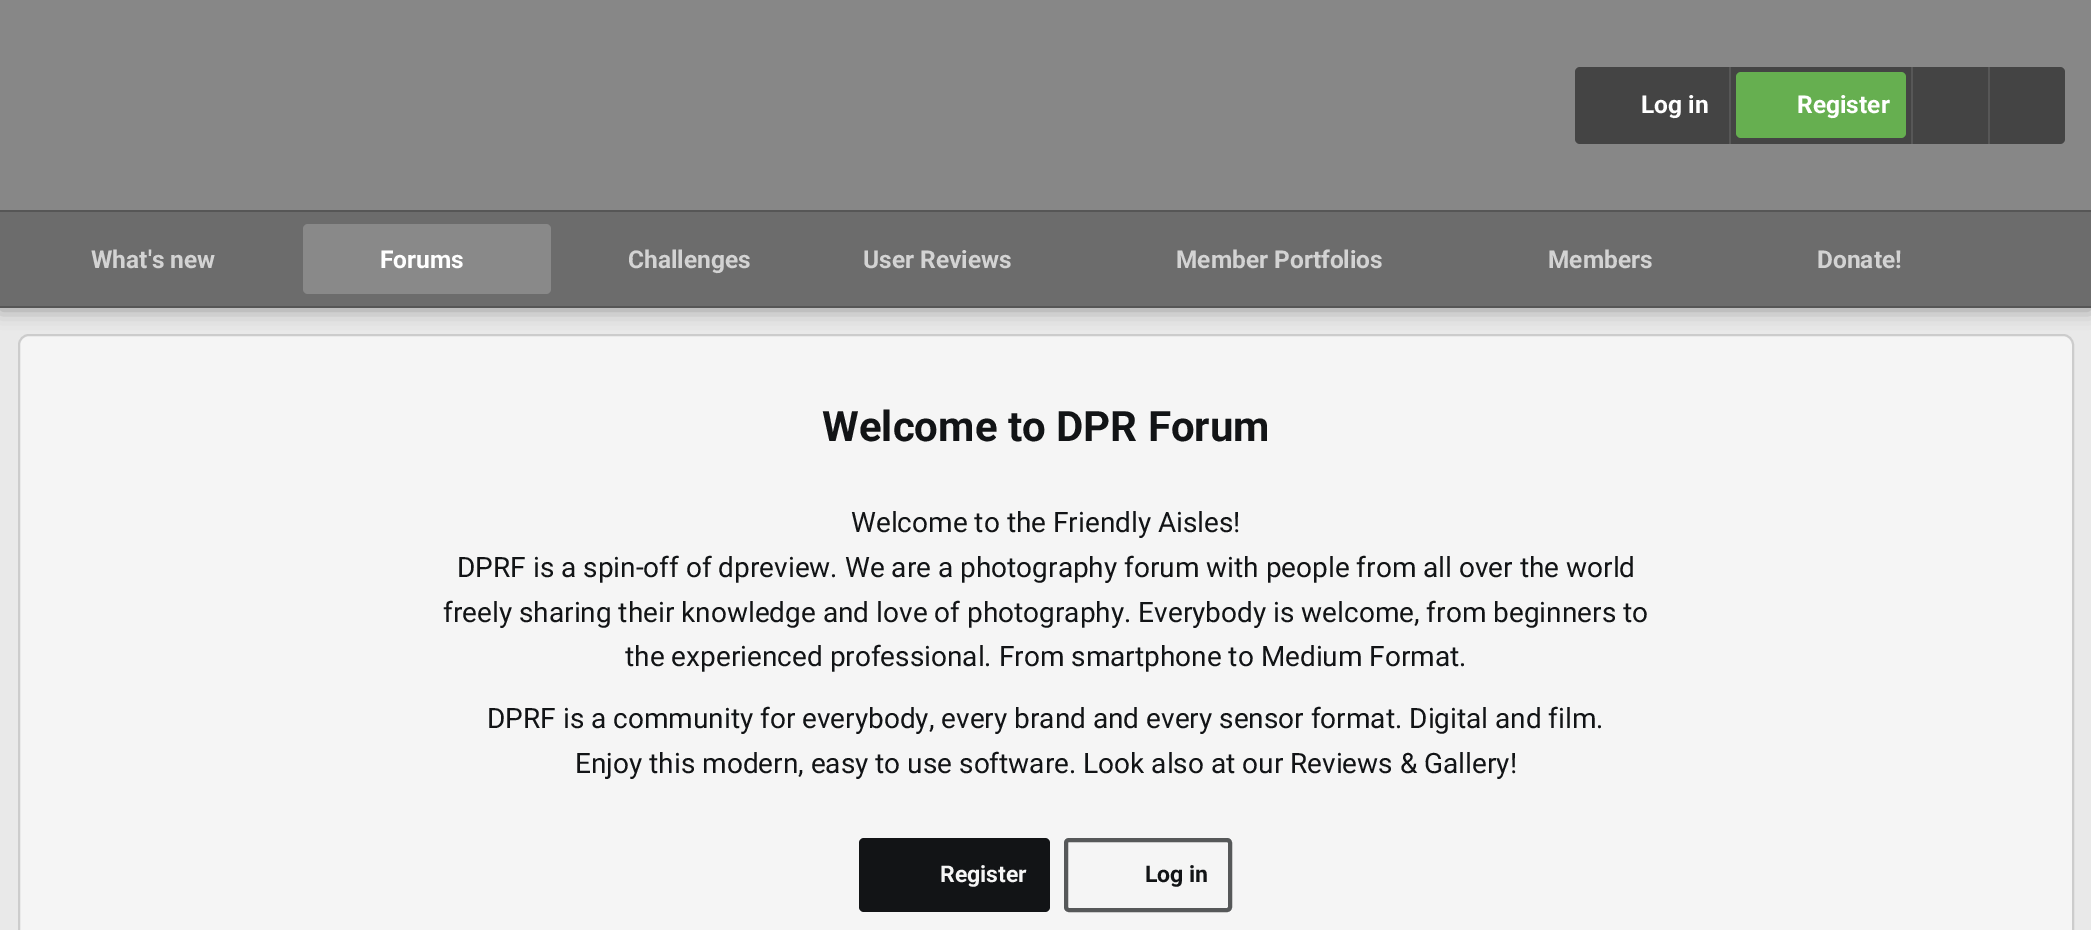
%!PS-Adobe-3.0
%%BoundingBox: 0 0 2091 930
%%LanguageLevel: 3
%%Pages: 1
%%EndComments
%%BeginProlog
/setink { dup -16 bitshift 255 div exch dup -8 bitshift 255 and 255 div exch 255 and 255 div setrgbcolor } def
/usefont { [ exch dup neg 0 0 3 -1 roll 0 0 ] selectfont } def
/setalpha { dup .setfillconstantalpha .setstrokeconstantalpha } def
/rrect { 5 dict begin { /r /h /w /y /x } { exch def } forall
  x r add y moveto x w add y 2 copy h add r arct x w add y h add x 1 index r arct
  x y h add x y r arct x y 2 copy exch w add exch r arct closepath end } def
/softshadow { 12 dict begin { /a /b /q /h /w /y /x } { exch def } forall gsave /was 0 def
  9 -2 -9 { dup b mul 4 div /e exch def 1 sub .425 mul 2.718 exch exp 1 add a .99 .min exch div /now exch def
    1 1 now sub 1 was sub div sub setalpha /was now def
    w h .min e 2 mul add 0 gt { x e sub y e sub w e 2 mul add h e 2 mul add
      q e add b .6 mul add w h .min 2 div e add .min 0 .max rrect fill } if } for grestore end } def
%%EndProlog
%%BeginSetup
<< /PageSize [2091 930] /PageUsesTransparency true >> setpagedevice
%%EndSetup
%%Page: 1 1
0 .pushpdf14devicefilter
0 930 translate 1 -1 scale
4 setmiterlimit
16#E9E9E9 setink
0 0 2091 930 rectfill
16#F5F5F5 setink
19 335 2054 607 10 rrect gsave fill grestore
16#CCCCCC setink
2 setlinewidth
stroke
16#000000 setink
0 2 2091 308 0 9 0.35 softshadow
16#878787 setink
0 0 2091 210 rectfill
16#444444 setink
1575 67 490 77 5 rrect fill
/Roboto-Bold 24.5 usefont
16#FFFFFF setink
1641 113 moveto (Log in) show
16#575757 setink
1729 67 2 77 rectfill
16#66AF50 setink
1736 72 170 66 5 rrect fill
16#FFFFFF setink
1797 113 moveto (Register) show
[
    [1911 67 2 77 16#575757]
    [1988 67 2 77 16#575757]
    [0 212 2091 94 16#6C6C6C]
    [0 210 2091 2 16#565656]
    [0 306 2091 2 16#565656]
] { aload pop setink rectfill } forall
16#D3D3D3 setink
91 268 moveto (What's new) show
16#898989 setink
303 224 248 70 5 rrect fill
16#FFFFFF setink
380 268 moveto (Forums) show
16#D3D3D3 setink
[
    [(Challenges) 628 268]
    [(User Reviews) 863 268]
    [(Member Portfolios) 1176 268]
    [(Members) 1548 268]
    [(Donate!) 1817 268]
] { aload pop moveto show } forall
/Roboto-Bold 42 usefont
16#121416 setink
822 441 moveto (Welcome to DPR Forum) show
/Roboto-Regular 28 usefont
[
    [(Welcome to the Friendly Aisles!) 851 532]
    [(DPRF is a spin-off of dpreview. We are a photography forum with people from all over the world) 457 577]
    [(freely sharing their knowledge and love of photography. Everybody is welcome, from beginners to) 443 622]
    [(the experienced professional. From smartphone to Medium Format.) 625 666]
    [(DPRF is a community for everybody, every brand and every sensor format. Digital and film.) 487 728]
    [(Enjoy this modern, easy to use software. Look also at our Reviews & Gallery!) 575 773]
] { aload pop moveto show } forall
859 838 191 74 5 rrect fill
/Roboto-Bold 23 usefont
16#F5F5F5 setink
940 882 moveto (Register) show
16#565859 setink
4 setlinewidth
1066 840 164 70 3 rrect stroke
16#121416 setink
1145 882 moveto (Log in) show
.poppdf14devicefilter showpage
%%EOF
